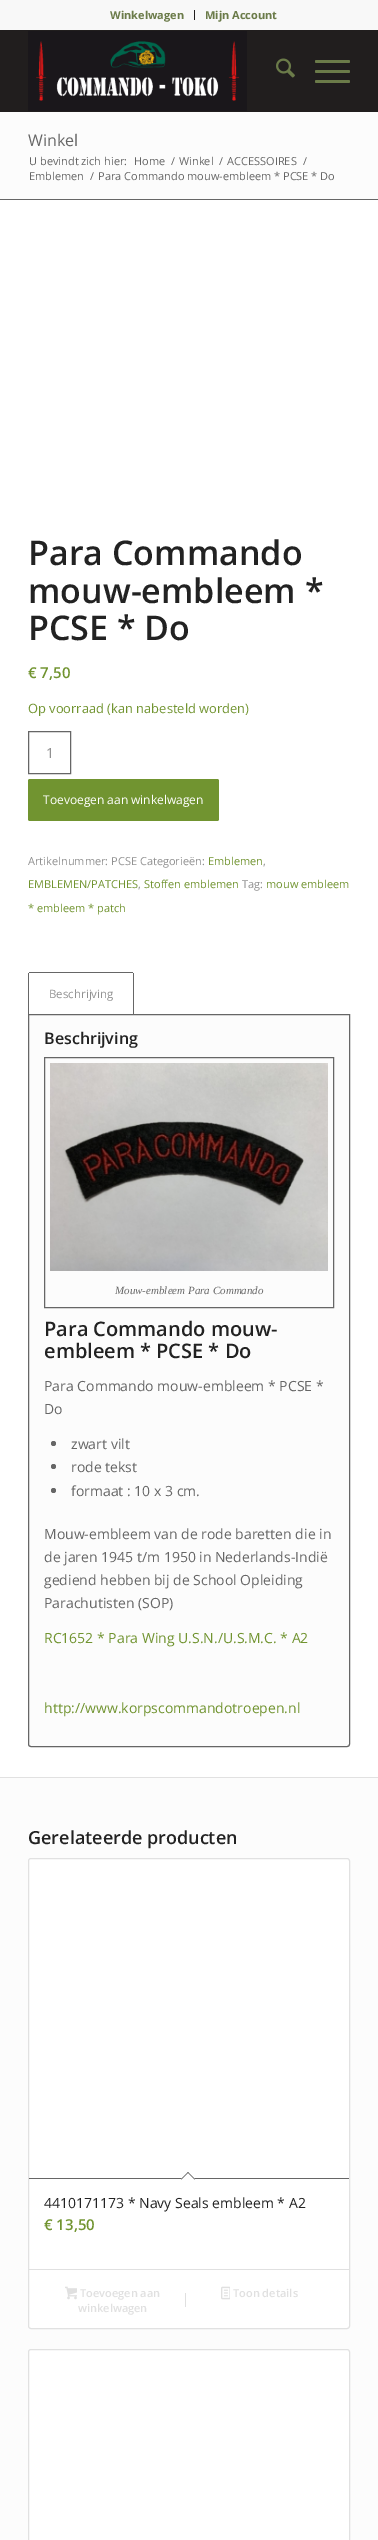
%!PS-Adobe-3.0
%%BoundingBox: 0 0 378 2540
%%LanguageLevel: 3
%%Pages: 1
%%EndComments
%%BeginProlog
/setink { dup -16 bitshift 255 div exch dup -8 bitshift 255 and 255 div exch 255 and 255 div setrgbcolor } def
/usefont { [ exch dup neg 0 0 3 -1 roll 0 0 ] selectfont } def
/disc { newpath 0 360 arc closepath } def
/rrect { 5 dict begin { /r /h /w /y /x } { exch def } forall
  x r add y moveto x w add y 2 copy h add r arct x w add y h add x 1 index r arct
  x y h add x y r arct x y 2 copy exch w add exch r arct closepath end } def
/drawimage { 5 dict begin { /h /w /y /x /name } { exch def } forall
  gsave x y translate w h scale
  w h 8 [w 0 0 h 0 0] name (r) file false 3 colorimage grestore end } def
%%EndProlog
%%BeginSetup
<< /PageSize [378 2540] >> setpagedevice
%%EndSetup
%%Page: 1 1
0 2540 translate 1 -1 scale
4 setmiterlimit
16#FCFCFC setink
0 0 378 2540 rectfill
16#F8F8F8 setink
0 0 378 30 rectfill
16#211E1E setink
194 10 1 10 rectfill
/OpenSans-Bold 11 usefont
16#6B7B49 setink
110 19 moveto (Winkelwagen) show
205 19 moveto (Mijn Account) show
16#211E1E setink
0 30 378 82 rectfill
(img1.raw) 28 31 219 80 drawimage
(img2.raw) 276 58 19 20 drawimage
16#6B7B49 setink
315 70 35 3 1.5 rrect fill
315 60 35 3 1.5 rrect fill
315 80 35 3 1.5 rrect fill
/OpenSans-Regular 16 usefont
16#666666 setink
28 146 moveto (Winkel) show
/OpenSans-Regular 11 usefont
[
    [(U bevindt zich hier:) 29 165]
    [(Home) 134 165]
    [(/) 171 165]
    [(Winkel) 179 165]
    [(/) 219 165]
    [(ACCESSOIRES) 227 165]
    [(/) 303 165]
    [(Emblemen) 29 180]
    [(/) 90 180]
    [(Para Commando mouw-embleem * PCSE * Do) 98 180]
] { aload pop moveto show } forall
16#FFFFFF setink
0 200 378 1577 rectfill
16#666666 setink
0 199 378 1 rectfill
/OpenSans-SemiBold 34 usefont
16#222222 setink
[
    [(Para Commando) 28 565]
    [(mouw-embleem *) 28 603]
    [(PCSE * Do) 28 640]
] { aload pop moveto show } forall
/OpenSans-SemiBold 15 usefont
16#719430 setink
28 678 moveto (€ 7,50) show
/OpenSans-Regular 12.9 usefont
28 713 moveto (Op voorraad \(kan nabesteld worden\)) show
16#666666 setink
28.5 731.5 42 42 rectstroke
/OpenSans-Regular 14 usefont
16#919191 setink
46 758 moveto (1) show
16#719430 setink
28 779 191 42 2 rrect fill
/OpenSans-Regular 12 usefont
16#FFFFFF setink
43 804 moveto (Toevoegen aan winkelwagen) show
/OpenSans-Regular 11 usefont
16#919191 setink
28 865 moveto (Artikelnummer: PCSE Categorieën:) show
16#719430 setink
208 865 moveto (Emblemen) show
16#919191 setink
263 865 moveto (,) show
16#719430 setink
28 888 moveto (EMBLEMEN/PATCHES) show
16#919191 setink
138 888 moveto (,) show
16#719430 setink
144 888 moveto (Stoffen emblemen) show
16#919191 setink
242 888 moveto (Tag:) show
16#719430 setink
266 888 moveto (mouw embleem) show
28 912 moveto (* embleem * patch) show
16#666666 setink
29 972 104 1 rectfill
16#FCFCFC setink
28.5 1014.5 moveto 349.5 1014.5 lineto 349.5 1744 lineto 349.5 1745.5 348.5 1746.5 347 1746.5 curveto 31 1746.5 lineto 29.5 1746.5 28.5 1745.5 28.5 1744 curveto closepath gsave fill grestore
16#666666 setink
stroke
133 973 1 42 rectfill
28 973 1 42 rectfill
/OpenSans-Regular 11.5 usefont
16#919191 setink
49 998 moveto (Beschrijving) show
/OpenSans-SemiBold 16 usefont
16#222222 setink
44 1044 moveto (Beschrijving) show
16#666666 setink
44.5 1057.5 289 250 rectstroke
(img3.raw) 50 1063 278 208 drawimage
/LiberationSerif-Italic 11 usefont
115 1294 moveto (Mouw-embleem Para Commando) show
/OpenSans-SemiBold 20 usefont
16#222222 setink
44 1336 moveto (Para Commando mouw-) show
44 1358 moveto (embleem * PCSE * Do) show
/OpenSans-Regular 14 usefont
16#666666 setink
44 1391 moveto (Para Commando mouw-embleem * PCSE *) show
44 1414 moveto (Do) show
53.5 1443.5 2.5 disc fill
71 1449 moveto (zwart vilt) show
53.5 1466.5 2.5 disc fill
71 1472 moveto (rode tekst) show
53.5 1490.5 2.5 disc fill
[
    [(formaat : 10 x 3 cm.) 71 1496]
    [(Mouw-embleem van de rode baretten die in) 44 1539]
    [(de jaren 1945 t/m 1950 in Nederlands-Indië) 44 1562]
    [(gediend hebben bij de School Opleiding) 44 1585]
    [(Parachutisten \(SOP\)) 44 1608]
] { aload pop moveto show } forall
16#719430 setink
44 1643 moveto (RC1652 * Para Wing U.S.N./U.S.M.C. * A2) show
44 1713 moveto (http://www.korpscommandotroepen.nl) show
16#E1E1E1 setink
0 1777 378 1 rectfill
/OpenSans-SemiBold 18 usefont
16#222222 setink
28 1844 moveto (Gerelateerde producten) show
16#FFFFFF setink
28.5 1858.5 321 470 2.5 rrect gsave fill grestore
16#E1E1E1 setink
stroke
16#666666 setink
29 2178 320 1 rectfill
16#FFFFFF setink
188 2172 moveto 195 2179 lineto 188 2186 lineto 181 2179 lineto closepath fill
16#666666 setink
188 2172 moveto 195 2179 lineto 194.5 2179.5 lineto 187.5 2172.5 lineto closepath fill
188 2172 moveto 188.5 2172.5 lineto 181.5 2179.5 lineto 181 2179 lineto closepath fill
/OpenSans-Regular 14 usefont
16#222222 setink
44 2208 moveto (4410171173 * Navy Seals embleem * A2) show
/OpenSans-SemiBold 15 usefont
16#719430 setink
44 2230 moveto (€ 13,50) show
16#E0E0E0 setink
29 2269 320 1 rectfill
(img4.raw) 65 2286 12 14 drawimage
/OpenSans-SemiBold 11 usefont
80 2297 moveto (Toevoegen aan) show
78 2312 moveto (winkelwagen) show
185 2293 1 14 rectfill
(img5.raw) 221 2286 9 14 drawimage
233 2297 moveto (Toon details) show
16#FFFFFF setink
28.5 2349.5 321 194 2.5 rrect gsave fill grestore
16#E1E1E1 setink
stroke
showpage
%%EOF
